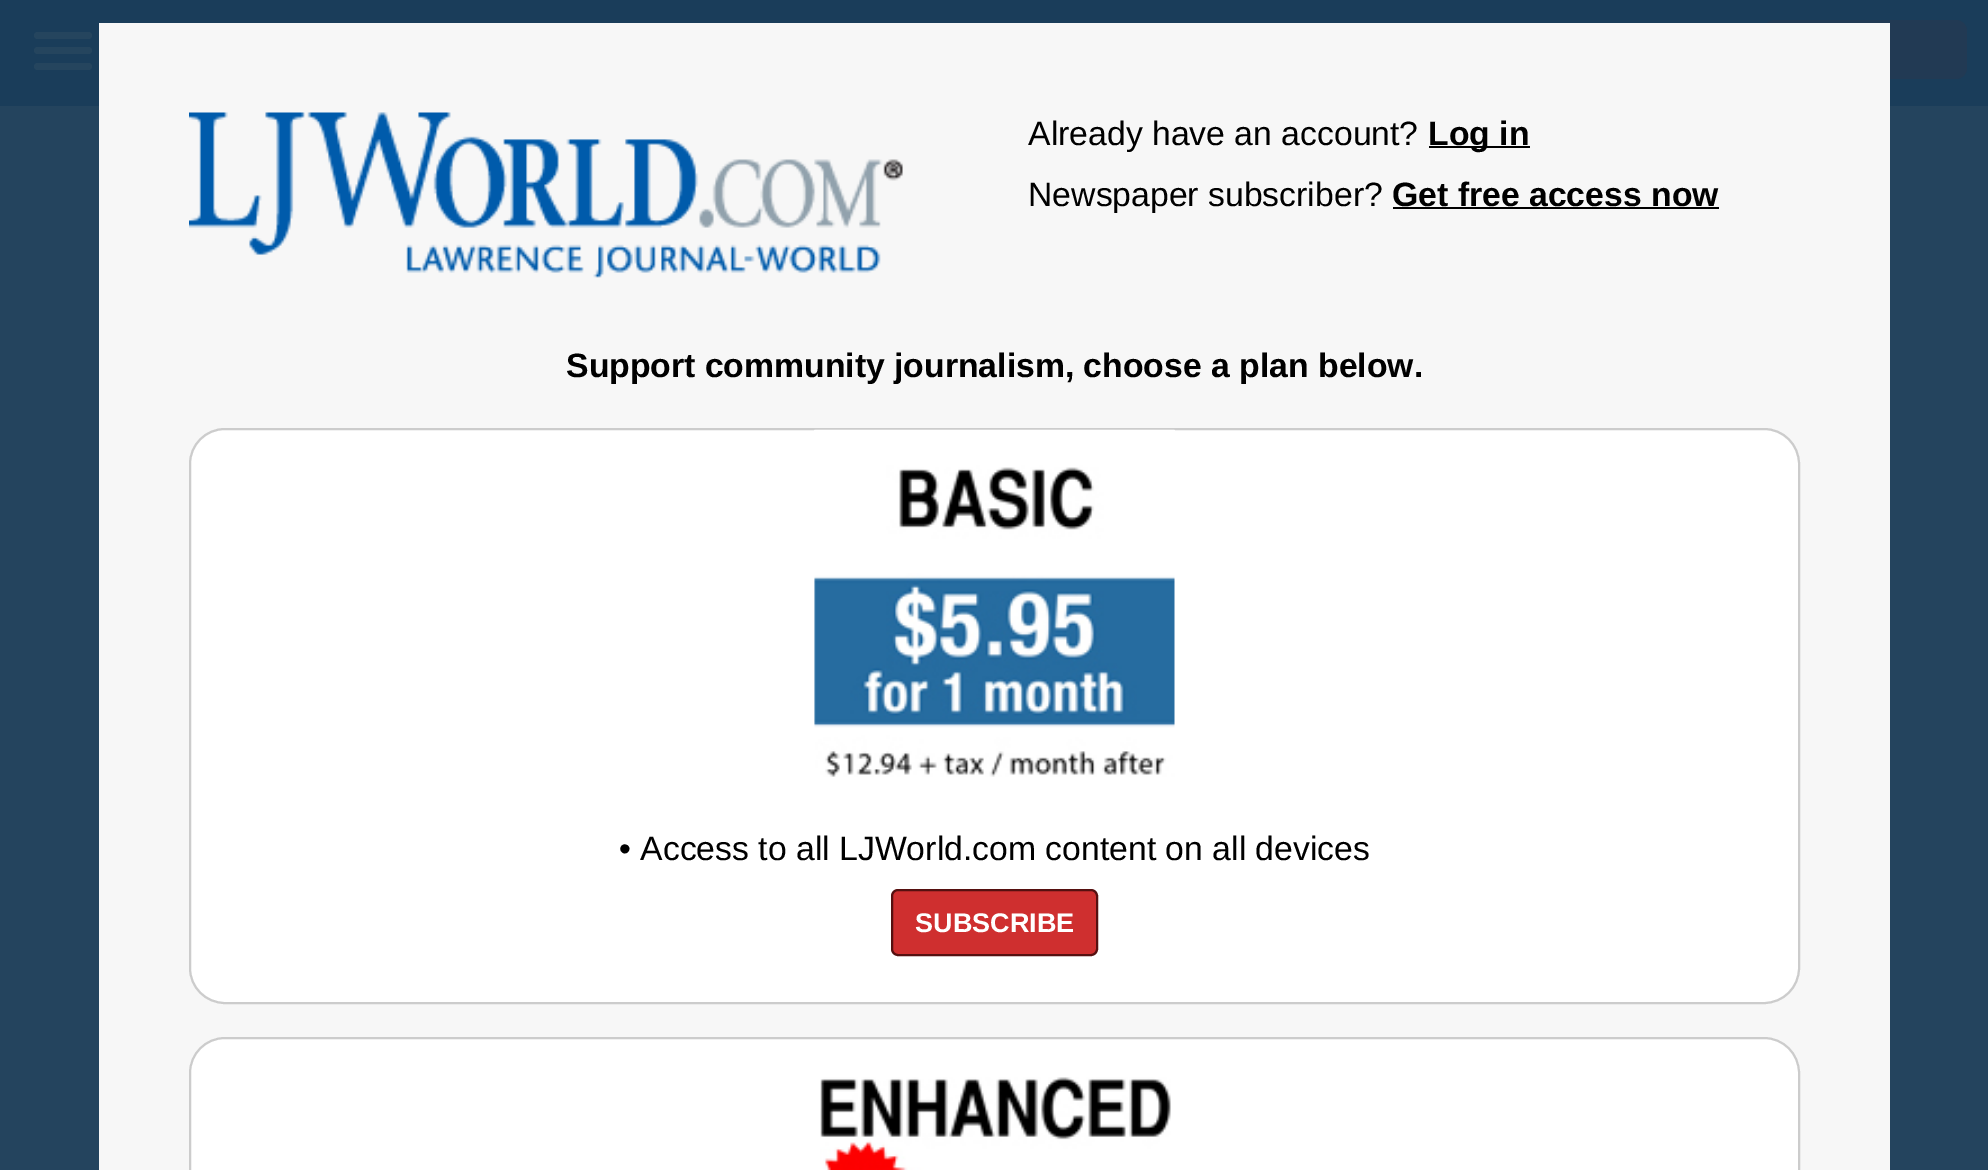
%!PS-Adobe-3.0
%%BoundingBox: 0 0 1988 1170
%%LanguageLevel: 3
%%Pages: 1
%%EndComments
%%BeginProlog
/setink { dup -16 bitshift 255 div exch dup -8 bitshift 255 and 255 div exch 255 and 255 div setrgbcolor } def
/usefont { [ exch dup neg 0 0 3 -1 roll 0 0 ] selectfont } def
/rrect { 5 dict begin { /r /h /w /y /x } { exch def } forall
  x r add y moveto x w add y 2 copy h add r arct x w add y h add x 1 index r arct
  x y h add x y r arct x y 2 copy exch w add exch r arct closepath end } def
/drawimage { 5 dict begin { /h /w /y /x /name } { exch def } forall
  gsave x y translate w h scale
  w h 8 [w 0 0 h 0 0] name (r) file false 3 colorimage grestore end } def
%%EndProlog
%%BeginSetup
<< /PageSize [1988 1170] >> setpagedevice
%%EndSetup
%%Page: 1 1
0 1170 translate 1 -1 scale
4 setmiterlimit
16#24445E setink
0 0 1988 1170 rectfill
16#1A3D5A setink
0 0 1988 106 rectfill
16#223A54 setink
1764 20 203 59 11 rrect fill
16#25455E setink
34 32 58 7 3.5 rrect fill
34 47 58 7 3.5 rrect fill
34 63 58 7 3.5 rrect fill
16#F7F7F7 setink
99 23 1791 1147 rectfill
(img1.raw) 189 112 714 166 drawimage
/LiberationSans-Regular 33.75 usefont
16#000000 setink
1028 145 moveto (Already have an account?) show
1429 146 101 2 rectfill
/LiberationSans-Bold 33.75 usefont
1428 145 moveto (Log in) show
/LiberationSans-Regular 33.75 usefont
1028 206 moveto (Newspaper subscriber?) show
/LiberationSans-Bold 33.75 usefont
1392 206 moveto (Get free access now) show
1393 207 326 2 rectfill
566 377 moveto (Support community journalism, choose a plan below.) show
16#FFFFFF setink
190 429 1609 574 35 rrect gsave fill grestore
16#CCCCCC setink
2 setlinewidth
stroke
(img2.raw) 814 429 361 348 drawimage
/LiberationSans-Regular 33.75 usefont
16#000000 setink
619 860 moveto (• Access to all LJWorld.com content on all devices) show
16#CF2F2F setink
892 890 205 65 6 rrect gsave fill grestore
16#561010 setink
stroke
/LiberationSans-Bold 27 usefont
16#FFFFFF setink
915 932 moveto (SUBSCRIBE) show
225 1037 moveto 1764 1037 lineto 1784 1037 1800 1053 1800 1073 curveto 1800 1170 lineto 189 1170 lineto 189 1073 lineto 189 1053 205 1037 225 1037 curveto closepath fill
16#CCCCCC setink
190 1038 1609 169 35 rrect stroke
(img3.raw) 820 1077 351 93 drawimage
showpage
%%EOF
